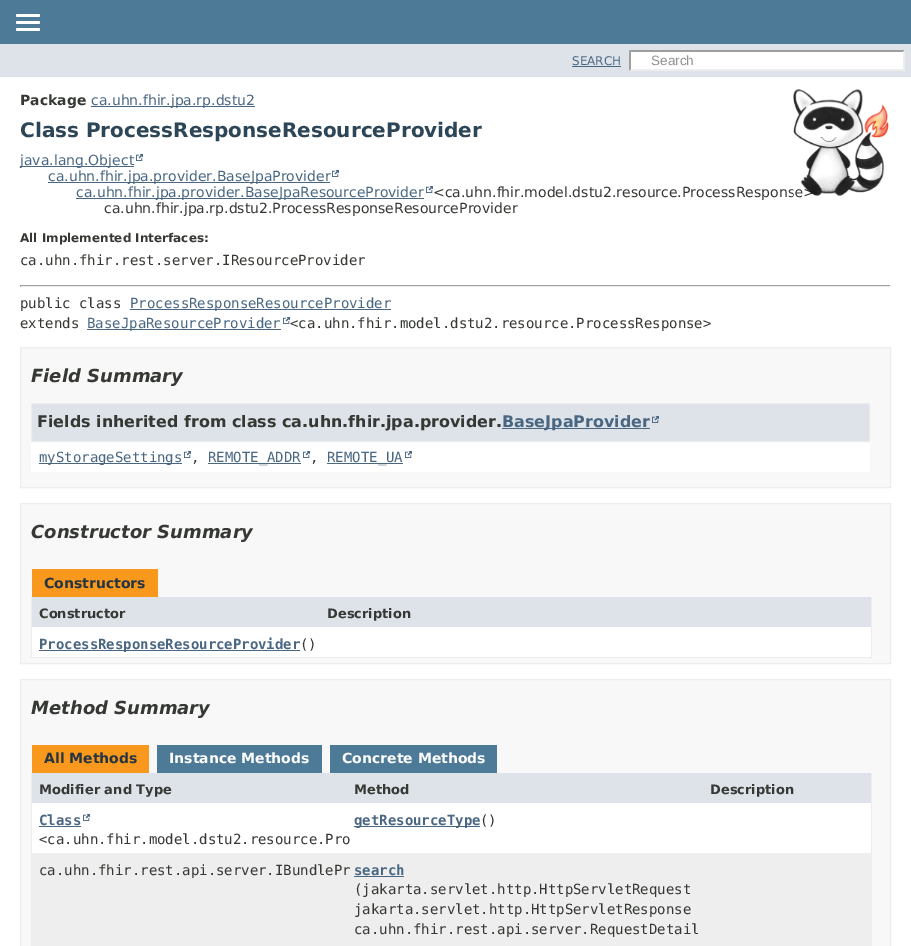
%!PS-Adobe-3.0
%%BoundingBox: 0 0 911 946
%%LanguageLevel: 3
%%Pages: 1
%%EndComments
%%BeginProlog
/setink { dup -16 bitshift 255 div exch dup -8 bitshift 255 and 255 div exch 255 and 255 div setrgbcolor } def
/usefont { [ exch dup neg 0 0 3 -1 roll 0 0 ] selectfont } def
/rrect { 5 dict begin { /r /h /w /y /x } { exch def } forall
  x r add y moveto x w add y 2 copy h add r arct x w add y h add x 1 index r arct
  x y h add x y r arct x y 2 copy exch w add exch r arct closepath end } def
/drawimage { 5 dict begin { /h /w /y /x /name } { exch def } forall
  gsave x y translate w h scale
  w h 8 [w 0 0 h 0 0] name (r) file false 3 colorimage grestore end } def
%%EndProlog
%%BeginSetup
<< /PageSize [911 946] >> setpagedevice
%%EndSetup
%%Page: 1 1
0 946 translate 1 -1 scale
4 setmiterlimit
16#FFFFFF setink
0 0 911 946 rectfill
16#4D7A97 setink
0 0 911 44 rectfill
16#FFFFFF setink
16 14 24 3 1.5 rrect fill
16 21 24 3 1.5 rrect fill
16 28 24 3 1.5 rrect fill
16#DEE3E9 setink
0 44 911 33 rectfill
/DejaVuSans-Regular 12 usefont
16#4A6782 setink
572 65 moveto (SEARCH) show
572 66 49 1 rectfill
16#FFFFFF setink
629 50 276 21 rectfill
16#9E9E9E setink
629 50 moveto 905 50 lineto 903 52 lineto 631 52 lineto closepath fill
16#EDEDED setink
905 50 moveto 905 71 lineto 903 69 lineto 903 52 lineto closepath fill
905 71 moveto 629 71 lineto 631 69 lineto 903 69 lineto closepath fill
16#9E9E9E setink
629 71 moveto 629 50 lineto 631 52 lineto 631 69 lineto closepath fill
/LiberationSans-Regular 13.5 usefont
16#909090 setink
651 65 moveto (Search) show
/DejaVuSans-Bold 14 usefont
16#353833 setink
20 105 moveto (Package) show
16#4A6782 setink
91 106 164 1 rectfill
/DejaVuSans-Regular 14 usefont
91 105 moveto (ca.uhn.fhir.jpa.rp.dstu2) show
/DejaVuSans-Bold 20 usefont
16#2C4557 setink
20 137 moveto (Class ProcessResponseResourceProvider) show
/DejaVuSans-Regular 14 usefont
16#353833 setink
433 197 moveto (<ca.uhn.fhir.model.dstu2.resource.ProcessResponse>) show
(img1.raw) 793 89 96 108 drawimage
16#4A6782 setink
20 166 114 1 rectfill
20 165 moveto (java.lang.Object) show
(img2.raw) 136 154 7 7 drawimage
48 182 282 1 rectfill
48 181 moveto (ca.uhn.fhir.jpa.provider.BaseJpaProvider) show
(img2.raw) 332 170 7 7 drawimage
76 198 348 1 rectfill
76 197 moveto (ca.uhn.fhir.jpa.provider.BaseJpaResourceProvider) show
(img2.raw) 426 186 7 7 drawimage
16#353833 setink
104 213 moveto (ca.uhn.fhir.jpa.rp.dstu2.ProcessResponseResourceProvider) show
/DejaVuSans-Bold 12 usefont
20 242 moveto (All Implemented Interfaces:) show
/DejaVuSansMono-Regular 14 usefont
20 265 moveto (ca.uhn.fhir.rest.server.IResourceProvider) show
[
    [20 285 871 1 16#9F9F9F]
    [890 285 1 2 16#EEEEEE]
    [20 286 871 1 16#EEEEEE]
    [20 285 1 2 16#9F9F9F]
] { aload pop setink rectfill } forall
16#353833 setink
20 308 moveto (public class) show
16#4A6782 setink
130 309 261 1 rectfill
130 308 moveto (ProcessResponseResourceProvider) show
16#353833 setink
20 328 moveto (extends) show
16#4A6782 setink
87 329 194 1 rectfill
87 328 moveto (BaseJpaResourceProvider) show
(img2.raw) 283 317 7 7 drawimage
16#353833 setink
290 328 moveto (<ca.uhn.fhir.model.dstu2.resource.ProcessResponse>) show
16#F8F8F8 setink
20.5 347.5 moveto 890.5 347.5 lineto 890.5 487.5 lineto 20.5 487.5 lineto closepath gsave fill grestore
16#EDEDED setink
stroke
/DejaVuSans-BoldItalic 18 usefont
16#353833 setink
31 382 moveto (Field Summary) show
16#FFFFFF setink
31 442 839 30 rectfill
16#DEE3E9 setink
31.5 403.5 moveto 869.5 403.5 lineto 869.5 441.5 lineto 31.5 441.5 lineto closepath gsave fill grestore
16#EDEDED setink
stroke
/DejaVuSans-Bold 15.95 usefont
16#353833 setink
37 427 moveto (Fields inherited from class ca.uhn.fhir.jpa.provider.) show
16#4A6782 setink
502 428 148 1 rectfill
502 427 moveto (BaseJpaProvider) show
(img3.raw) 652 416 7 7 drawimage
39 463 143 1 rectfill
/DejaVuSansMono-Regular 14 usefont
39 462 moveto (myStorageSettings) show
(img2.raw) 184 451 7 7 drawimage
16#353833 setink
191 462 moveto (,) show
16#4A6782 setink
208 463 93 1 rectfill
208 462 moveto (REMOTE_ADDR) show
(img2.raw) 303 451 7 7 drawimage
16#353833 setink
310 462 moveto (,) show
16#4A6782 setink
327 463 76 1 rectfill
327 462 moveto (REMOTE_UA) show
(img2.raw) 405 451 7 7 drawimage
16#F8F8F8 setink
20.5 503.5 moveto 890.5 503.5 lineto 890.5 663.5 lineto 20.5 663.5 lineto closepath gsave fill grestore
16#EDEDED setink
stroke
/DejaVuSans-BoldItalic 18 usefont
16#353833 setink
31 538 moveto (Constructor Summary) show
16#F8981D setink
32 569 126 28 rectfill
/DejaVuSans-Bold 14 usefont
16#253441 setink
44 588 moveto (Constructors) show
[
    [871 597 1 61 16#EDEDED]
    [31 657 841 1 16#EDEDED]
    [31 597 1 61 16#EDEDED]
    [32 597 839 30 16#DEE3E9]
] { aload pop setink rectfill } forall
/DejaVuSans-Bold 13 usefont
16#353833 setink
39 618 moveto (Constructor) show
327 618 moveto (Description) show
16#FFFFFF setink
32 627 839 30 rectfill
16#4A6782 setink
39 650 261 1 rectfill
/DejaVuSansMono-Bold 14 usefont
39 649 moveto (ProcessResponseResourceProvider) show
/DejaVuSansMono-Regular 14 usefont
16#353833 setink
300 649 moveto (\(\)) show
16#F8F8F8 setink
20.5 679.5 moveto 890.5 679.5 lineto 890.5 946.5 lineto 20.5 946.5 lineto closepath gsave fill grestore
16#EDEDED setink
stroke
/DejaVuSans-BoldItalic 18 usefont
16#353833 setink
31 714 moveto (Method Summary) show
16#F8981D setink
32 745 117 28 rectfill
/DejaVuSans-Bold 14 usefont
16#253441 setink
44 763 moveto (All Methods) show
16#4D7A97 setink
157 745 165 28 rectfill
16#FFFFFF setink
169 763 moveto (Instance Methods) show
16#4D7A97 setink
330 745 167 28 rectfill
16#FFFFFF setink
342 763 moveto (Concrete Methods) show
[
    [871 773 1 173 16#EDEDED]
    [31 773 1 173 16#EDEDED]
    [32 773 839 30 16#DEE3E9]
] { aload pop setink rectfill } forall
/DejaVuSans-Bold 13 usefont
16#353833 setink
[
    [(Modifier and Type) 39 794]
    [(Method) 354 794]
    [(Description) 710 794]
] { aload pop moveto show } forall
16#FFFFFF setink
32 803 839 50 rectfill
/DejaVuSansMono-Bold 14 usefont
16#4A6782 setink
39 825 moveto (Class) show
39 826 42 1 rectfill
(img2.raw) 83 814 7 7 drawimage
/DejaVuSansMono-Regular 14 usefont
16#353833 setink
39 844 moveto (<ca.uhn.fhir.model.dstu2.resource.Pro) show
16#4A6782 setink
354 826 126 1 rectfill
/DejaVuSansMono-Bold 14 usefont
354 825 moveto (getResourceType) show
/DejaVuSansMono-Regular 14 usefont
16#353833 setink
480 825 moveto (\(\)) show
16#EEEEEF setink
32 853 839 93 rectfill
16#353833 setink
39 875 moveto (ca.uhn.fhir.rest.api.server.IBundlePr) show
/DejaVuSansMono-Bold 14 usefont
16#4A6782 setink
354 875 moveto (search) show
354 876 50 1 rectfill
/DejaVuSansMono-Regular 14 usefont
16#353833 setink
[
    [(\(jakarta.servlet.http.HttpServletRequest) 354 894]
    [(jakarta.servlet.http.HttpServletResponse) 354 914]
    [(ca.uhn.fhir.rest.api.server.RequestDetail) 354 934]
] { aload pop moveto show } forall
showpage
%%EOF
